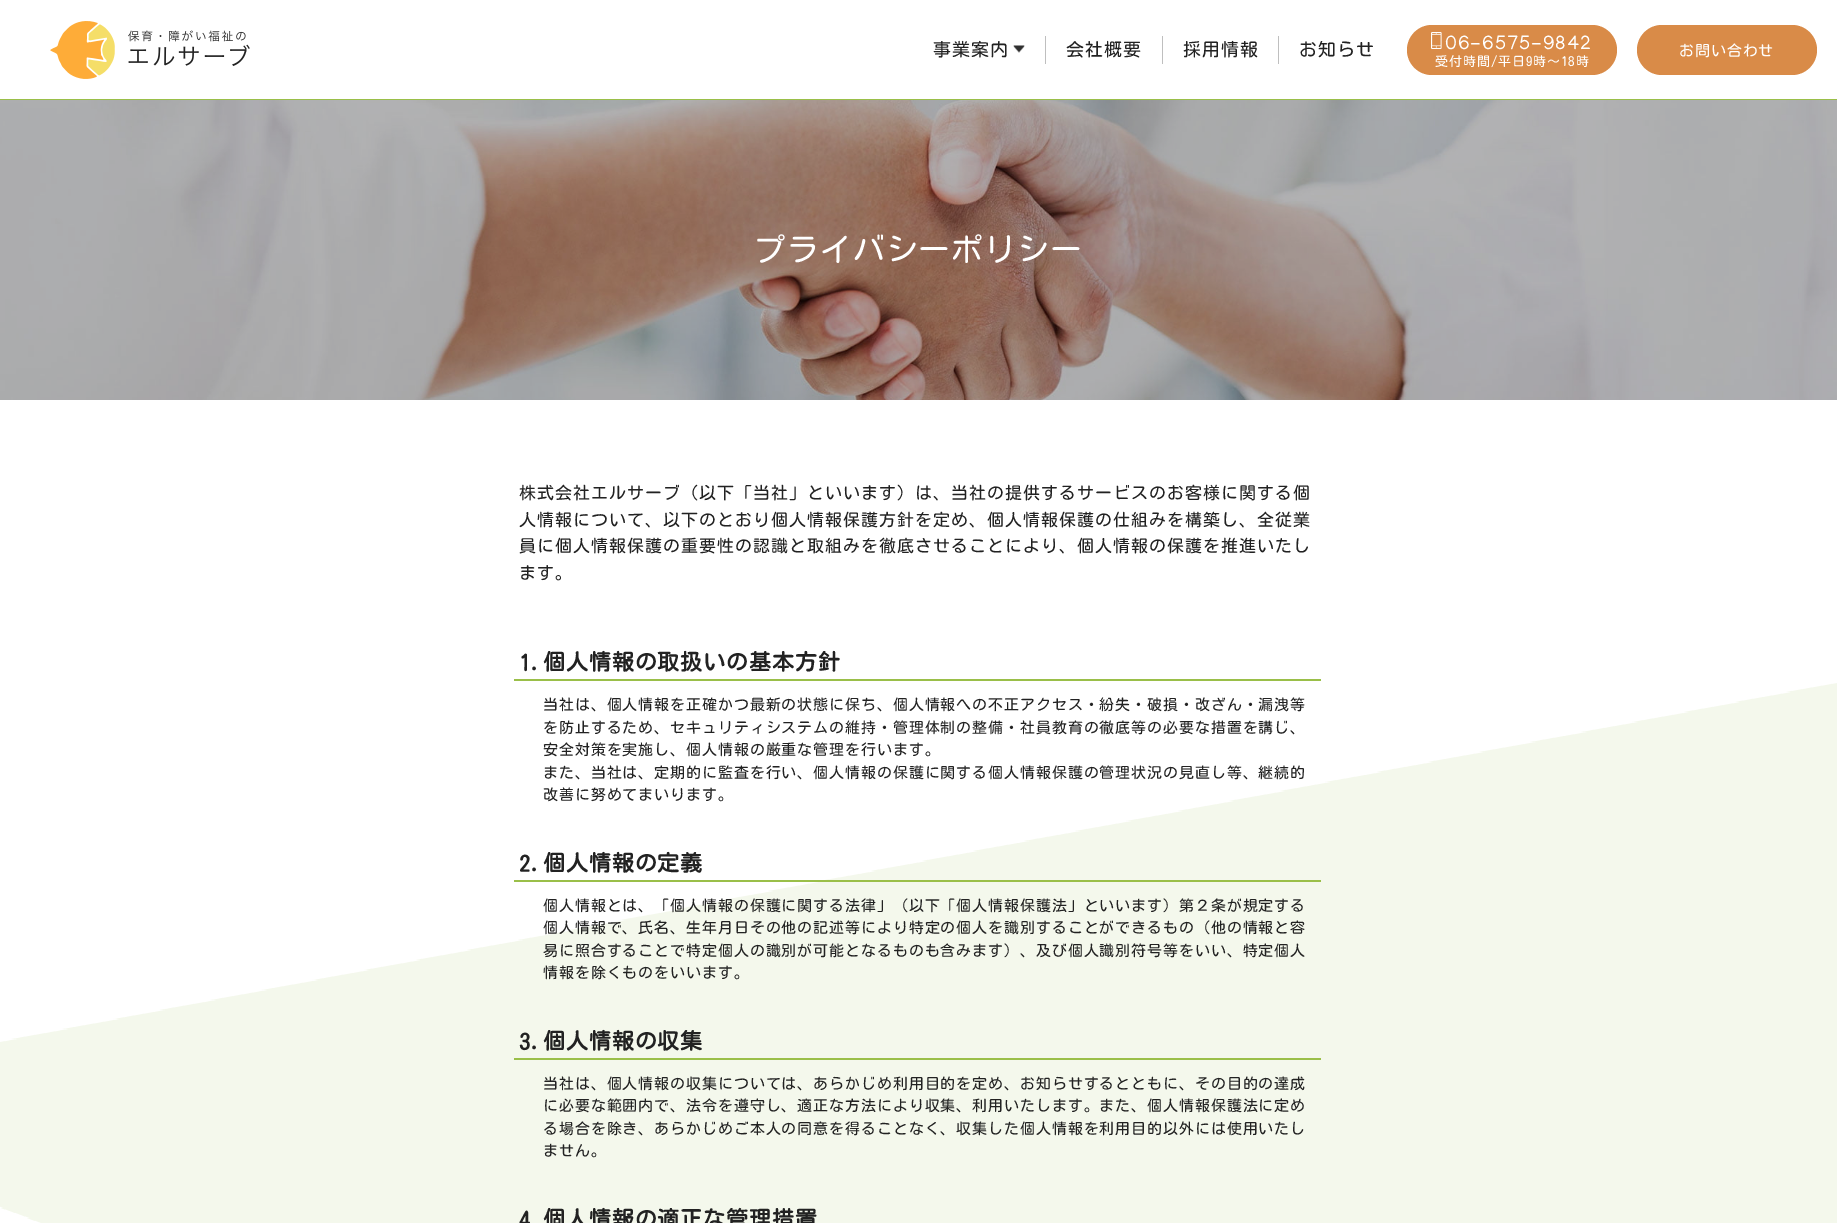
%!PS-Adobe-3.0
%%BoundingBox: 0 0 1837 1223
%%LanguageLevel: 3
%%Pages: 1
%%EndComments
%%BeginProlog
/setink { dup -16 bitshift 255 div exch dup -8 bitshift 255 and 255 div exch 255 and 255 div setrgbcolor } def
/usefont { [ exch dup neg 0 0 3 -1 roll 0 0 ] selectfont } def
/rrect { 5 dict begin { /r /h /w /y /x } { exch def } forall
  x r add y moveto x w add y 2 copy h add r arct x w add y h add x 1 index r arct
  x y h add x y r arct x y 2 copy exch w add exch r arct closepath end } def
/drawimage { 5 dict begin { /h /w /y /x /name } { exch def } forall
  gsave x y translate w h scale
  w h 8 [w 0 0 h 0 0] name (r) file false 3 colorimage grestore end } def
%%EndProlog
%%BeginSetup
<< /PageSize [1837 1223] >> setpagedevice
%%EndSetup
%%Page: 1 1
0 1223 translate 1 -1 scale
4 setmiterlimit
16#FFFFFF setink
0 0 1837 1223 rectfill
16#9ABF49 setink
0 99 1837 1 rectfill
(img1.raw) 50 21 200 58 drawimage
16#BFBFBF setink
1045 36 1 28 rectfill
/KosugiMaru-Regular 18 usefont
16#222222 setink
933 56 moveto 0.9 0 (事業案内) ashow
(img2.raw) 1013 45 12 8 drawimage
16#BFBFBF setink
1162 36 1 28 rectfill
16#222222 setink
1066 56 moveto 0.9 0 (会社概要) ashow
16#BFBFBF setink
1278 36 1 28 rectfill
16#222222 setink
1183 56 moveto 0.9 0 (採用情報) ashow
1299 56 moveto 0.9 0 (お知らせ) ashow
16#D98B48 setink
1407 25 210 50 25 rrect fill
(img3.raw) 1431 32 11 17 drawimage
/Manjari-Regular 20 usefont
16#FFFFFF setink
1445 49 moveto 0.9 0 (06-6575-9842) ashow
/KosugiMaru-Regular 13 usefont
1435 66 moveto 0.9 0 (受付時間/平日9時〜18時) ashow
16#D98B48 setink
1637 25 180 50 25 rrect fill
/KosugiMaru-Regular 15 usefont
16#FFFFFF setink
1679 56 moveto 0.9 0 (お問い合わせ) ashow
(img4.raw) 0 100 1837 300 drawimage
/KosugiMaru-Regular 32 usefont
754 261 moveto 0.9 0 (プライバシーポリシー) ashow
(img5.raw) 0 683 1837 540 drawimage
/KosugiMaru-Regular 17 usefont
16#222222 setink
519 499 moveto 1 0 (株式会社エルサーブ（以下「当社」といいます）は、当社の提供するサービスのお客様に関する個) ashow
519 526 moveto 1 0 (人情報について、以下のとおり個人情報保護方針を定め、個人情報保護の仕組みを構築し、全従業) ashow
519 552 moveto 1 0 (員に個人情報保護の重要性の認識と取組みを徹底させることにより、個人情報の保護を推進いたし) ashow
519 579 moveto 1 0 (ます。) ashow
/KosugiMaru-Bold 22 usefont
519 671 moveto 0.9 0 (1.) ashow
543 670 moveto 0.9 0 (個人情報の取扱いの基本方針) ashow
16#9ABF49 setink
514 679 807 2 rectfill
/KosugiMaru-Regular 15 usefont
16#222222 setink
543 710 moveto 0.9 0 (当社は、個人情報を正確かつ最新の状態に保ち、個人情報への不正アクセス・紛失・破損・改ざん・漏洩等) ashow
543 733 moveto 0.9 0 (を防止するため、セキュリティシステムの維持・管理体制の整備・社員教育の徹底等の必要な措置を講じ、) ashow
543 755 moveto 0.9 0 (安全対策を実施し、個人情報の厳重な管理を行います。) ashow
543 778 moveto 0.9 0 (また、当社は、定期的に監査を行い、個人情報の保護に関する個人情報保護の管理状況の見直し等、継続的) ashow
543 800 moveto 0.9 0 (改善に努めてまいります。) ashow
/KosugiMaru-Bold 22 usefont
519 872 moveto 0.9 0 (2.) ashow
543 871 moveto 0.9 0 (個人情報の定義) ashow
16#9ABF49 setink
514 880 807 2 rectfill
/KosugiMaru-Regular 15 usefont
16#222222 setink
543 911 moveto 0.9 0 (個人情報とは、「個人情報の保護に関する法律」（以下「個人情報保護法」といいます）第２条が規定する) ashow
543 933 moveto 0.9 0 (個人情報で、氏名、生年月日その他の記述等により特定の個人を識別することができるもの（他の情報と容) ashow
543 956 moveto 0.9 0 (易に照合することで特定個人の識別が可能となるものも含みます）、及び個人識別符号等をいい、特定個人) ashow
543 978 moveto 0.9 0 (情報を除くものをいいます。) ashow
/KosugiMaru-Bold 22 usefont
519 1050 moveto 0.9 0 (3.) ashow
543 1049 moveto 0.9 0 (個人情報の収集) ashow
16#9ABF49 setink
514 1058 807 2 rectfill
/KosugiMaru-Regular 15 usefont
16#222222 setink
543 1089 moveto 0.9 0 (当社は、個人情報の収集については、あらかじめ利用目的を定め、お知らせするとともに、その目的の達成) ashow
543 1111 moveto 0.9 0 (に必要な範囲内で、法令を遵守し、適正な方法により収集、利用いたします。また、個人情報保護法に定め) ashow
543 1134 moveto 0.9 0 (る場合を除き、あらかじめご本人の同意を得ることなく、収集した個人情報を利用目的以外には使用いたし) ashow
543 1156 moveto 0.9 0 (ません。) ashow
/KosugiMaru-Bold 22 usefont
519 1228 moveto 0.9 0 (4) ashow
543 1227 moveto 0.9 0 (個人情報の適正な管理措置) ashow
showpage
%%EOF
